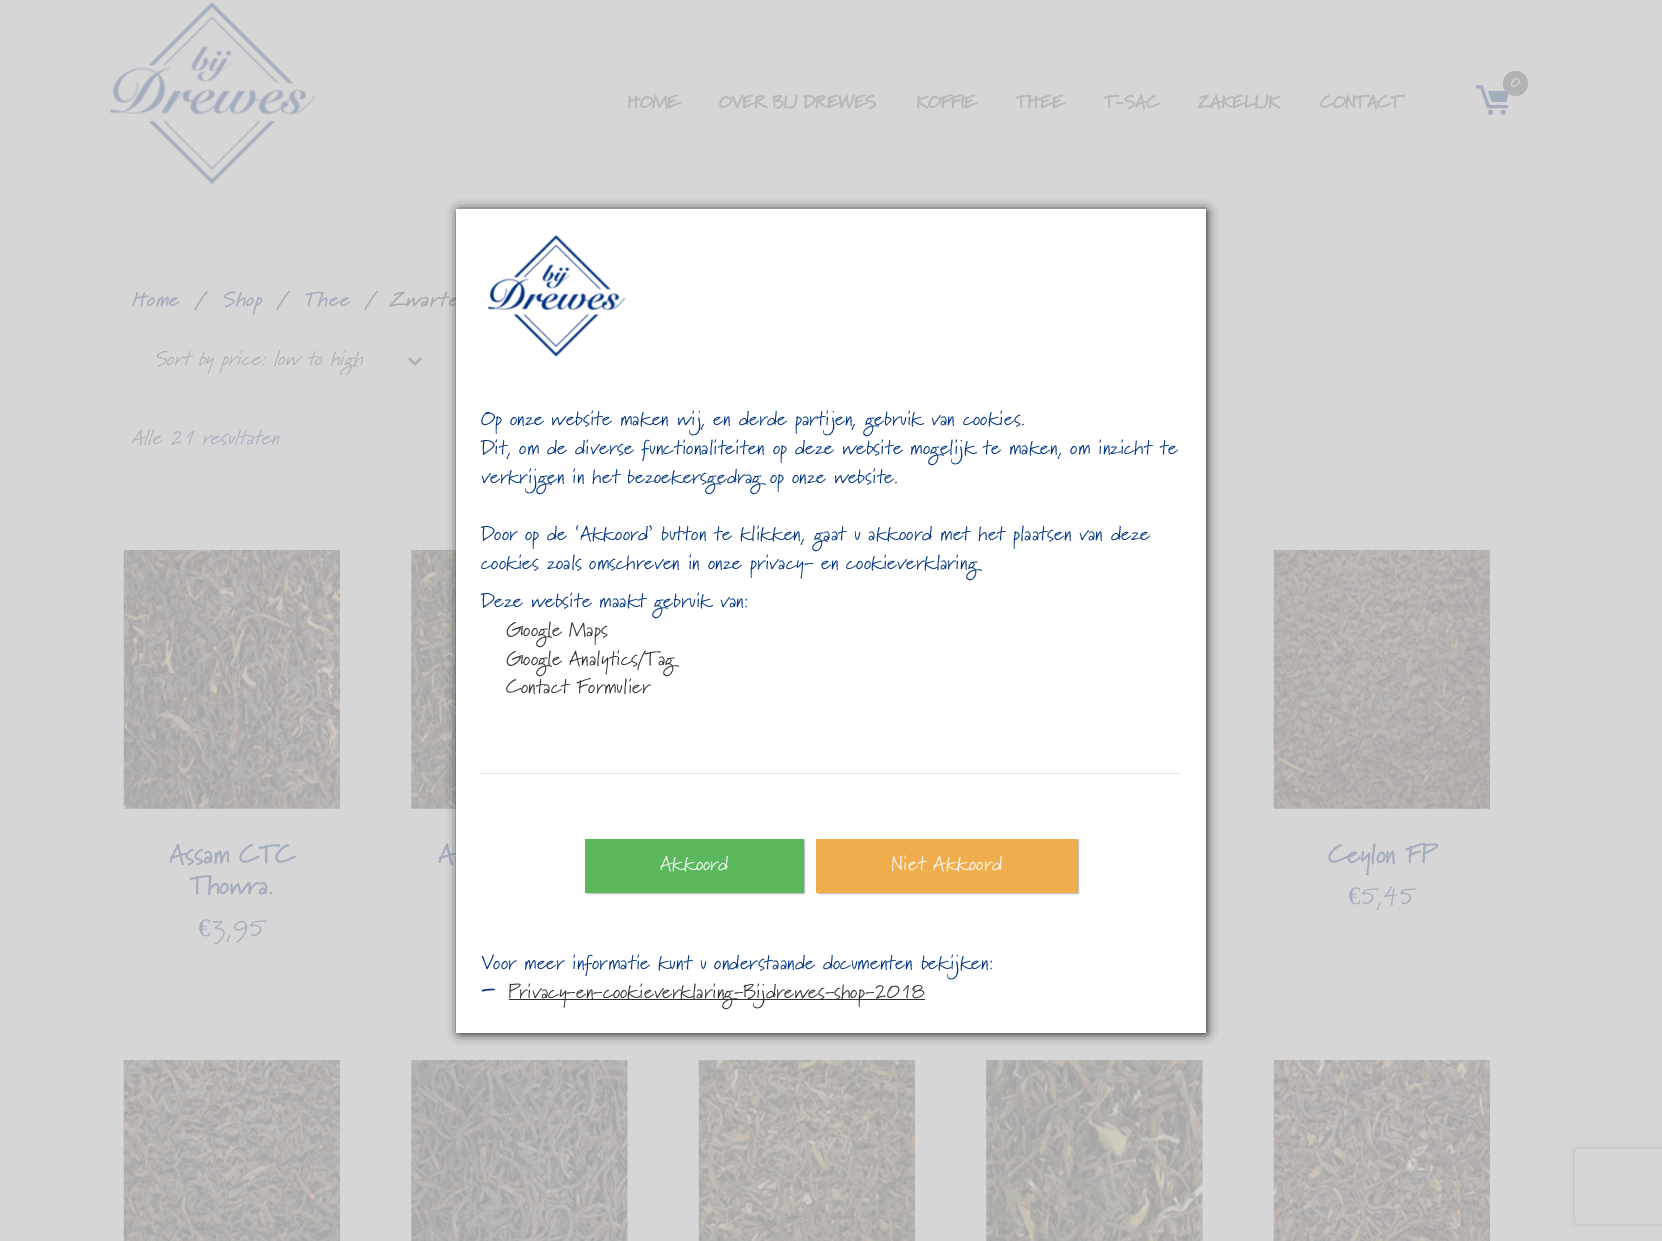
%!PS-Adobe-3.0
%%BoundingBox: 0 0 1662 1241
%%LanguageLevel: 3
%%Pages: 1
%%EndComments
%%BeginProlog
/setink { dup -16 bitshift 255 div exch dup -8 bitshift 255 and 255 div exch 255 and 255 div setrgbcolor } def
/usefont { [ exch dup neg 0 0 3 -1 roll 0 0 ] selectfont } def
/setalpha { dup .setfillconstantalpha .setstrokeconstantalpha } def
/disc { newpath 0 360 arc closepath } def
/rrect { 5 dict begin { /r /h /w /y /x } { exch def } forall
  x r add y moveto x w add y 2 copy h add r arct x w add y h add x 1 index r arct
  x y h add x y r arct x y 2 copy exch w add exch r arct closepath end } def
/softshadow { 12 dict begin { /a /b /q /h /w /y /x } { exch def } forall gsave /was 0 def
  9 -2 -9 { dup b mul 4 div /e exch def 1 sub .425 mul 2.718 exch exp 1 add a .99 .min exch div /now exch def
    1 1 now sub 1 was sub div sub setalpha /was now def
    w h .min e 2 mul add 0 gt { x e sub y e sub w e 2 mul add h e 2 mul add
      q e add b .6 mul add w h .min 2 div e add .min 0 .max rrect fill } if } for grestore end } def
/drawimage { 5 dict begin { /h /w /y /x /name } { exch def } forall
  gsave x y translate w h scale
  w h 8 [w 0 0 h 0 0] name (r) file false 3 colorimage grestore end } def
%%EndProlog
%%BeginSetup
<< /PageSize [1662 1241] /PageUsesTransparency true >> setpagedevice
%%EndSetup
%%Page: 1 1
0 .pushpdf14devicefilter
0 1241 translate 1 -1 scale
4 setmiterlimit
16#D6D6D6 setink
0 0 1662 1241 rectfill
(img1.raw) 109 2 207 182 drawimage
(img2.raw) 1475 85 34 30 drawimage
16#B1B2B3 setink
1515.5 83.5 12.5 disc fill
/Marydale-Bold 14 usefont
16#D6D6D6 setink
1511 87 moveto (0) show
/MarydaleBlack-Black 18.75 usefont
16#B8B8B8 setink
627 108 moveto -1 0 (HOME) ashow
719 108 moveto -1 0 (OVER BIJ DREWES) ashow
916 108 moveto -1 0 (KOFFIE) ashow
1016 108 moveto -1 0 (THEE) ashow
1104 108 moveto -1 0 (T-SAC) ashow
1198 108 moveto -1 0 (ZAKELIJK) ashow
1320 108 moveto -1 0 (CONTACT) ashow
/Marydale-BoldItalic 20 usefont
16#A3ADBD setink
131 306 moveto 1.25 0 (Home) ashow
196 306 moveto 1.25 0 (/) ashow
221 306 moveto 1.25 0 (Shop) ashow
278 306 moveto 1.25 0 (/) ashow
303 306 moveto 1.25 0 (Thee) ashow
366 306 moveto 1.25 0 (/) ashow
16#A7A9AA setink
390 306 moveto 1.25 0 (Zwarte) ashow
gsave
154 346 240 29 rectclip
/Marydale-Italic 20 usefont
16#ADADAD setink
154 365 moveto (Sort by price: low to high) show
grestore
(img3.raw) 408 357 14 9 drawimage
/Marydale-Italic 20 usefont
16#ADADAD setink
131 444 moveto (Alle) show
16#A3ADBD setink
169 444 moveto (21 resultaten) show
(img4.raw) 123 550 217 259 drawimage
/Marydale-Bold 26.25 usefont
169 863 moveto (Assam CTC) show
190 894 moveto (Thowra.) show
/LiberationSerif-Regular 25 usefont
198 936 moveto (€) show
/Marydale-Regular 25 usefont
211 936 moveto (3,95) show
(img5.raw) 411 550 45 259 drawimage
/Marydale-Bold 26.25 usefont
438 863 moveto (A) show
(img6.raw) 1273 550 217 259 drawimage
1328 863 moveto (Ceylon FP) show
/LiberationSerif-Regular 25 usefont
1348 904 moveto (€) show
/Marydale-Regular 25 usefont
1361 904 moveto (5,45) show
(img7.raw) 123 1060 217 181 drawimage
(img8.raw) 411 1060 217 181 drawimage
(img9.raw) 698 1060 217 181 drawimage
(img10.raw) 986 1060 217 181 drawimage
(img11.raw) 1273 1060 217 181 drawimage
16#000000 setink
459 211 747 822 0 5.5 1 softshadow
16#FFFFFF setink
456 209 750 824 rectfill
(img12.raw) 488 235 138 122 drawimage
/Marydale-Regular 20 usefont
16#003381 setink
[
    [(Op onze website maken wij, en derde partijen, gebruik van cookies.) 481 425]
    [(Dit, om de diverse functionaliteiten op deze website mogelijk te maken, om inzicht te) 481 454]
    [(verkrijgen in het bezoekersgedrag op onze website.) 481 483]
    [(Door op de ‘Akkoord’ button te klikken, gaat u akkoord met het plaatsen van deze) 481 540]
    [(cookies zoals omschreven in onze privacy- en cookieverklaring) 481 569]
    [(Deze website maakt gebruik van:) 481 607]
] { aload pop moveto show } forall
16#2F2F2F setink
[
    [(Google Maps) 506 636]
    [(Google Analytics/Tag) 506 665]
    [(Contact Formulier) 506 693]
] { aload pop moveto show } forall
16#E7E7E7 setink
481 773 700 1 rectfill
16#444444 setink
588 841 216 52 0 1 1 softshadow
16#5CB85C setink
585 839 219 54 rectfill
16#FFFFFF setink
660 870 moveto (Akkoord) show
16#444444 setink
819 841 259 52 0 1 1 softshadow
16#F0AD4E setink
816 839 262 54 rectfill
16#FFFFFF setink
891 870 moveto (Niet Akkoord) show
16#003381 setink
481 969 moveto (Voor meer informatie kunt u onderstaande documenten bekijken:) show
/Marydale-Regular 31 usefont
481 998 moveto (-) show
16#2F2F2F setink
509 999 416 1 rectfill
/Marydale-Regular 20 usefont
508 998 moveto (Privacy-en-cookieverklaring-Bijdrewes-shop-2018) show
gsave
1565 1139 moveto 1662 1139 lineto 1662 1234 lineto 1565 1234 lineto closepath 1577.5 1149 moveto 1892.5 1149 lineto 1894 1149 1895 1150 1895 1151.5 curveto 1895 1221.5 lineto 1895 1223 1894 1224 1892.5 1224 curveto 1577.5 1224 lineto 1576 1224 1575 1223 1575 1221.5 curveto 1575 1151.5 lineto 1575 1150 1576 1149 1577.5 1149 curveto closepath eoclip newpath
16#BDBDBD setink
1575 1149 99 75 2.5 3 1 softshadow
grestore
.poppdf14devicefilter showpage
%%EOF
